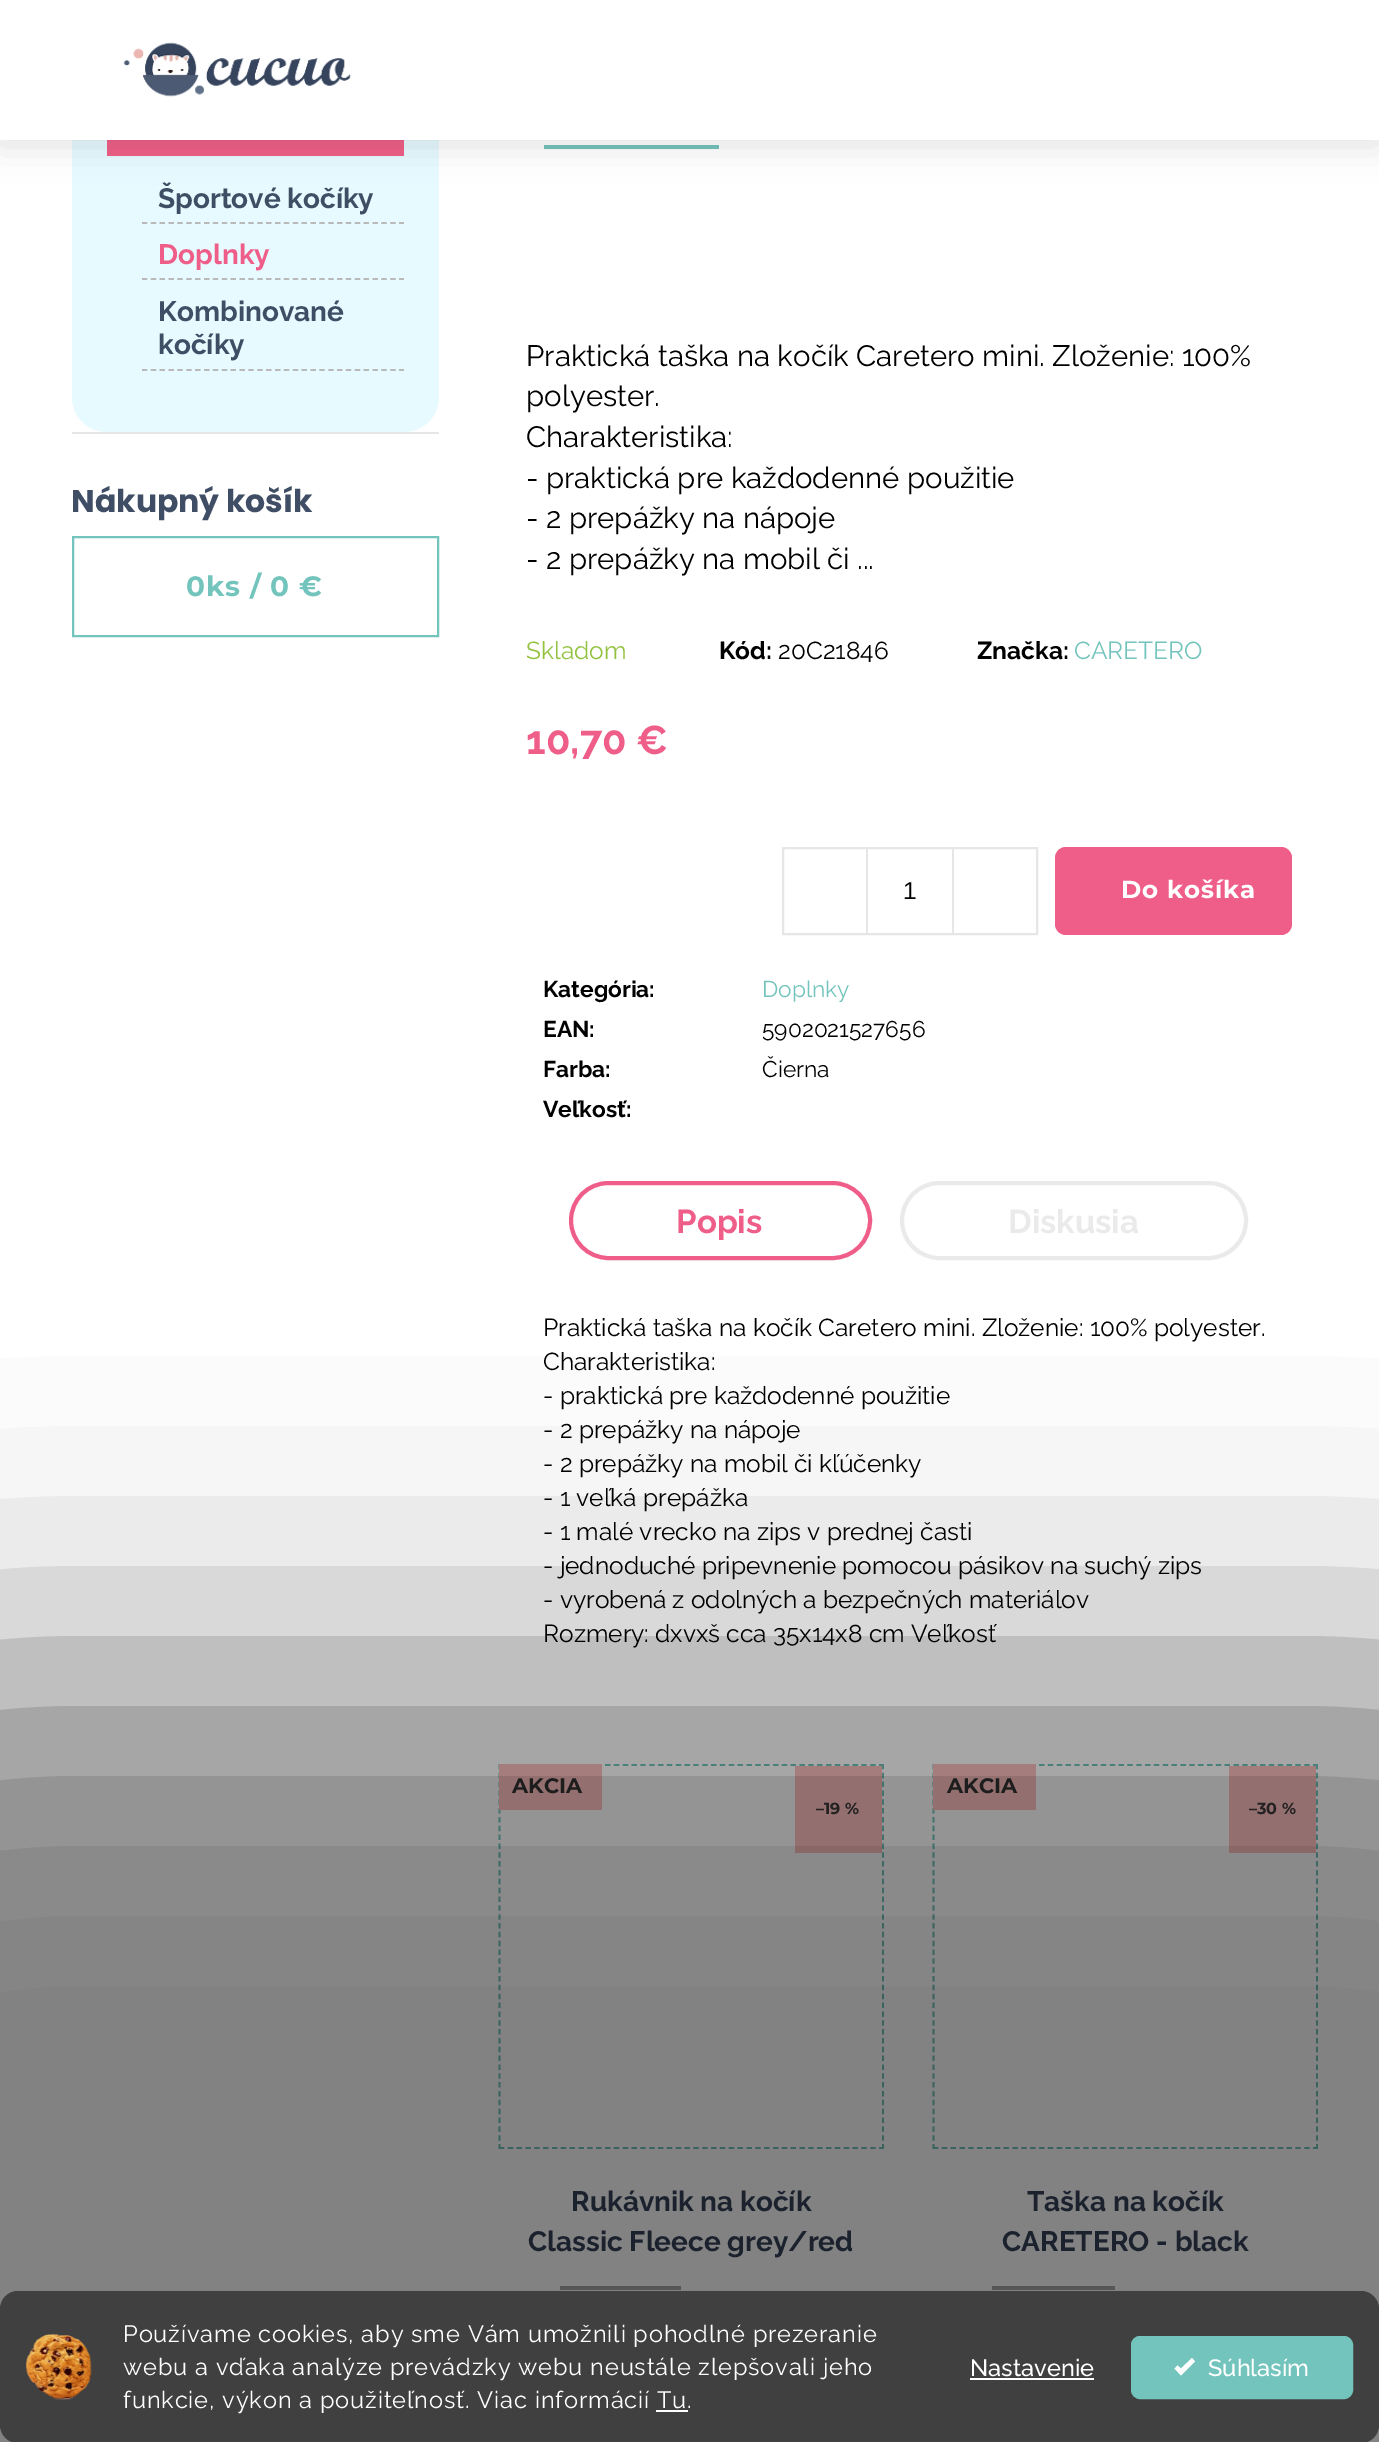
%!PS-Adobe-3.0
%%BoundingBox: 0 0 1379 2442
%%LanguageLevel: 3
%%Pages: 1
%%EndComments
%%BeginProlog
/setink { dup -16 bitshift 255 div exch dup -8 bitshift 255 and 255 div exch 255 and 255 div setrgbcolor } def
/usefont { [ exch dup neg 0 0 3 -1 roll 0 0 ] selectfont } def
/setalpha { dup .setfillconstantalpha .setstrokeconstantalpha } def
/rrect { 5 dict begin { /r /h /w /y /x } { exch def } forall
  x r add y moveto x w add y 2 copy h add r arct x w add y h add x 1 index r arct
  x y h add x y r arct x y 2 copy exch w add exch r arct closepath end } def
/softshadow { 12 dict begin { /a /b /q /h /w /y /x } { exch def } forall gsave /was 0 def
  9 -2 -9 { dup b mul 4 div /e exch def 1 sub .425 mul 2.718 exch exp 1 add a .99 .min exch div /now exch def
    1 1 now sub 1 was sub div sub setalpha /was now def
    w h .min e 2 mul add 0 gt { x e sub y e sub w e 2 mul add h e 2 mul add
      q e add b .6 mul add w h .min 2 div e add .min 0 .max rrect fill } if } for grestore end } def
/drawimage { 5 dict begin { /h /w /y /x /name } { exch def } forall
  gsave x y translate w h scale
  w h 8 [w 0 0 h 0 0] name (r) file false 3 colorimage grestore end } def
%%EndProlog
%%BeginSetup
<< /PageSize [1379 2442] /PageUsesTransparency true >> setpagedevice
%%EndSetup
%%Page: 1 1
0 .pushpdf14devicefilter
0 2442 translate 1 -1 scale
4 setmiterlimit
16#FFFFFF setink
0 0 1379 2442 rectfill
16#E6FAFF setink
72 -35 367 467 35 rrect fill
16#EF5E89 setink
107 140 297 16 rectfill
16#73C4BC setink
544 145 175 4 rectfill
16#000000 setink
0 5 1379 140 0 17.5 0.12 softshadow
16#FFFFFF setink
0 0 1379 140 rectfill
(img1.raw) 123 42 228 55 drawimage
16#B9B9B9 setink
1.8 setlinewidth
[5.25 3.62] 0 setdash
142 223 moveto 404 223 lineto stroke
/Raleway-Bold 28 usefont
16#404E65 setink
158 208 moveto (Športové kočíky) show
16#B9B9B9 setink
142 279 moveto 404 279 lineto stroke
16#EF5E89 setink
158 264 moveto (Doplnky) show
16#B9B9B9 setink
142 370 moveto 404 370 lineto stroke
16#404E65 setink
158 321 moveto (Kombinované) show
158 354 moveto (kočíky) show
16#E6E6E6 setink
72 432 367 2 rectfill
/Poppins-Bold 31.5 usefont
16#404E65 setink
71 512 moveto (Nákupný košík) show
16#73C4BC setink
2 setlinewidth
[] 0 setdash
73 537 365 99 rectstroke
/Montserrat-Thin 28 usefont
186 596 moveto 0.88 0 (0ks / 0 €) ashow
/Raleway-Regular 29.4 usefont
16#000000 setink
[
    [(Praktická taška na kočík Caretero mini. Zloženie: 100%) 526 366]
    [(polyester.) 526 406]
    [(Charakteristika:) 526 447]
    [(- praktická pre každodenné použitie) 526 488]
    [(- 2 prepážky na nápoje) 526 528]
    [(- 2 prepážky na mobil či ...) 526 569]
] { aload pop moveto show } forall
/Raleway-Regular 24.5 usefont
16#93C240 setink
526 659 moveto (Skladom) show
/Raleway-Bold 24.5 usefont
16#000000 setink
719 659 moveto (Kód:) show
/Raleway-Regular 24.5 usefont
778 659 moveto (20C21846) show
/Raleway-Bold 24.5 usefont
977 659 moveto (Značka:) show
/Raleway-Regular 24.5 usefont
16#73C4BC setink
1074 659 moveto (CARETERO) show
/Raleway-Bold 40 usefont
16#EF5E89 setink
526 754 moveto (10,70 €) show
16#E6E6E6 setink
783 848 254 86 rectstroke
866 849 2 84 rectfill
/LiberationSans-Regular 24.5 usefont
16#000000 setink
903 899 moveto (1) show
16#E6E6E6 setink
952 849 2 84 rectfill
16#EF5E89 setink
1055 847 237 88 11 rrect fill
/Montserrat-Thin 24.5 usefont
16#FFFFFF setink
1121 898 moveto 0.88 0 (Do košíka) ashow
/Raleway-Bold 22.75 usefont
16#000000 setink
543 997 moveto (Kategória:) show
/Raleway-Regular 22.75 usefont
16#73C4BC setink
762 997 moveto (Doplnky) show
/Raleway-Bold 22.75 usefont
16#000000 setink
543 1037 moveto (EAN:) show
/Raleway-Regular 22.75 usefont
762 1037 moveto (5902021527656) show
/Raleway-Bold 22.75 usefont
543 1077 moveto (Farba:) show
/Raleway-Regular 22.75 usefont
762 1077 moveto (Čierna) show
/Raleway-Bold 22.75 usefont
543 1117 moveto (Veľkosť:) show
16#EF5E89 setink
4 setlinewidth
571 1183 299 75 37.5 rrect stroke
/Raleway-Bold 33 usefont
676 1233 moveto (Popis) show
16#EAEAEA setink
902 1183 344 75 37.5 rrect stroke
1008 1233 moveto (Diskusia) show
/Raleway-Regular 24.5 usefont
16#000000 setink
[
    [(Praktická taška na kočík Caretero mini. Zloženie: 100% polyester.) 543 1336]
    [(Charakteristika:) 543 1370]
    [(- praktická pre každodenné použitie) 543 1404]
    [(- 2 prepážky na nápoje) 543 1438]
    [(- 2 prepážky na mobil či kľúčenky) 543 1472]
    [(- 1 veľká prepážka) 543 1506]
    [(- 1 malé vrecko na zips v prednej časti) 543 1540]
    [(- jednoduché pripevnenie pomocou pásikov na suchý zips) 543 1574]
    [(- vyrobená z odolných a bezpečných materiálov) 543 1608]
    [(Rozmery: dxvxš cca 35x14x8 cm Veľkosť) 543 1642]
] { aload pop moveto show } forall
16#73C4BC setink
1.8 setlinewidth
[5.25 3.59] 0 setdash
499 1765 moveto 884 1765 lineto stroke
883 1764 moveto 883 2149 lineto stroke
499 2148 moveto 884 2148 lineto stroke
499.5 1764 moveto 499.5 2149 lineto stroke
16#FFC0C0 setink
499 1764 103 46 rectfill
/Montserrat-Thin 21 usefont
16#333333 setink
512 1793 moveto (AKCIA) show
16#FFC0C0 setink
795 1766 87 87 rectfill
/Montserrat-Thin 16 usefont
16#3B3939 setink
816 1814 moveto (–19 %) show
/Raleway-Bold 28 usefont
16#36435C setink
571 2211 moveto (Rukávnik na kočík) show
528 2251 moveto (Classic Fleece grey/red) show
16#AAAAAA setink
560 2286 121 4 rectfill
16#73C4BC setink
933 1765 moveto 1318 1765 lineto stroke
1317 1764 moveto 1317 2149 lineto stroke
933 2148 moveto 1318 2148 lineto stroke
933.5 1764 moveto 933.5 2149 lineto stroke
16#FFC0C0 setink
933 1764 103 46 rectfill
/Montserrat-Thin 21 usefont
16#333333 setink
947 1793 moveto (AKCIA) show
16#FFC0C0 setink
1229 1766 87 87 rectfill
/Montserrat-Thin 16 usefont
16#3B3939 setink
1249 1814 moveto (–30 %) show
/Raleway-Bold 28 usefont
16#36435C setink
1027 2211 moveto (Taška na kočík) show
1002 2251 moveto (CARETERO - black) show
16#AAAAAA setink
992 2286 123 4 rectfill
16#000000 setink
-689 1671 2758 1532 707 140 0.5 softshadow
16#404040 setink
0 2291 1379 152 18 rrect fill
(img2.raw) 26 2334 66 66 drawimage
/Raleway-Regular 23.6 usefont
16#FFFFFF setink
123 2342 moveto 0.88 0 (Používame cookies, aby sme Vám umožnili pohodlné prezeranie) ashow
123 2375 moveto 0.88 0 (webu a vďaka analýze prevádzky webu neustále zlepšovali jeho) ashow
123 2408 moveto 0.88 0 (funkcie, výkon a použiteľnosť. Viac informácií Tu.) ashow
656 2410 32 2 rectfill
/Raleway-Medium 23.6 usefont
970 2376 moveto (Nastavenie) show
970 2378 124 2 rectfill
16#73C4BC setink
1132 2337 220 61 8 rrect gsave fill grestore
2 setlinewidth
[] 0 setdash
stroke
16#FFFFFF setink
1192 2358 moveto 1181 2368.5 lineto 1177.5 2365.5 lineto 1174.5 2368.5 lineto 1181 2375.5 lineto 1195 2361.5 lineto closepath fill
1208 2376 moveto (Súhlasím) show
.poppdf14devicefilter showpage
%%EOF
